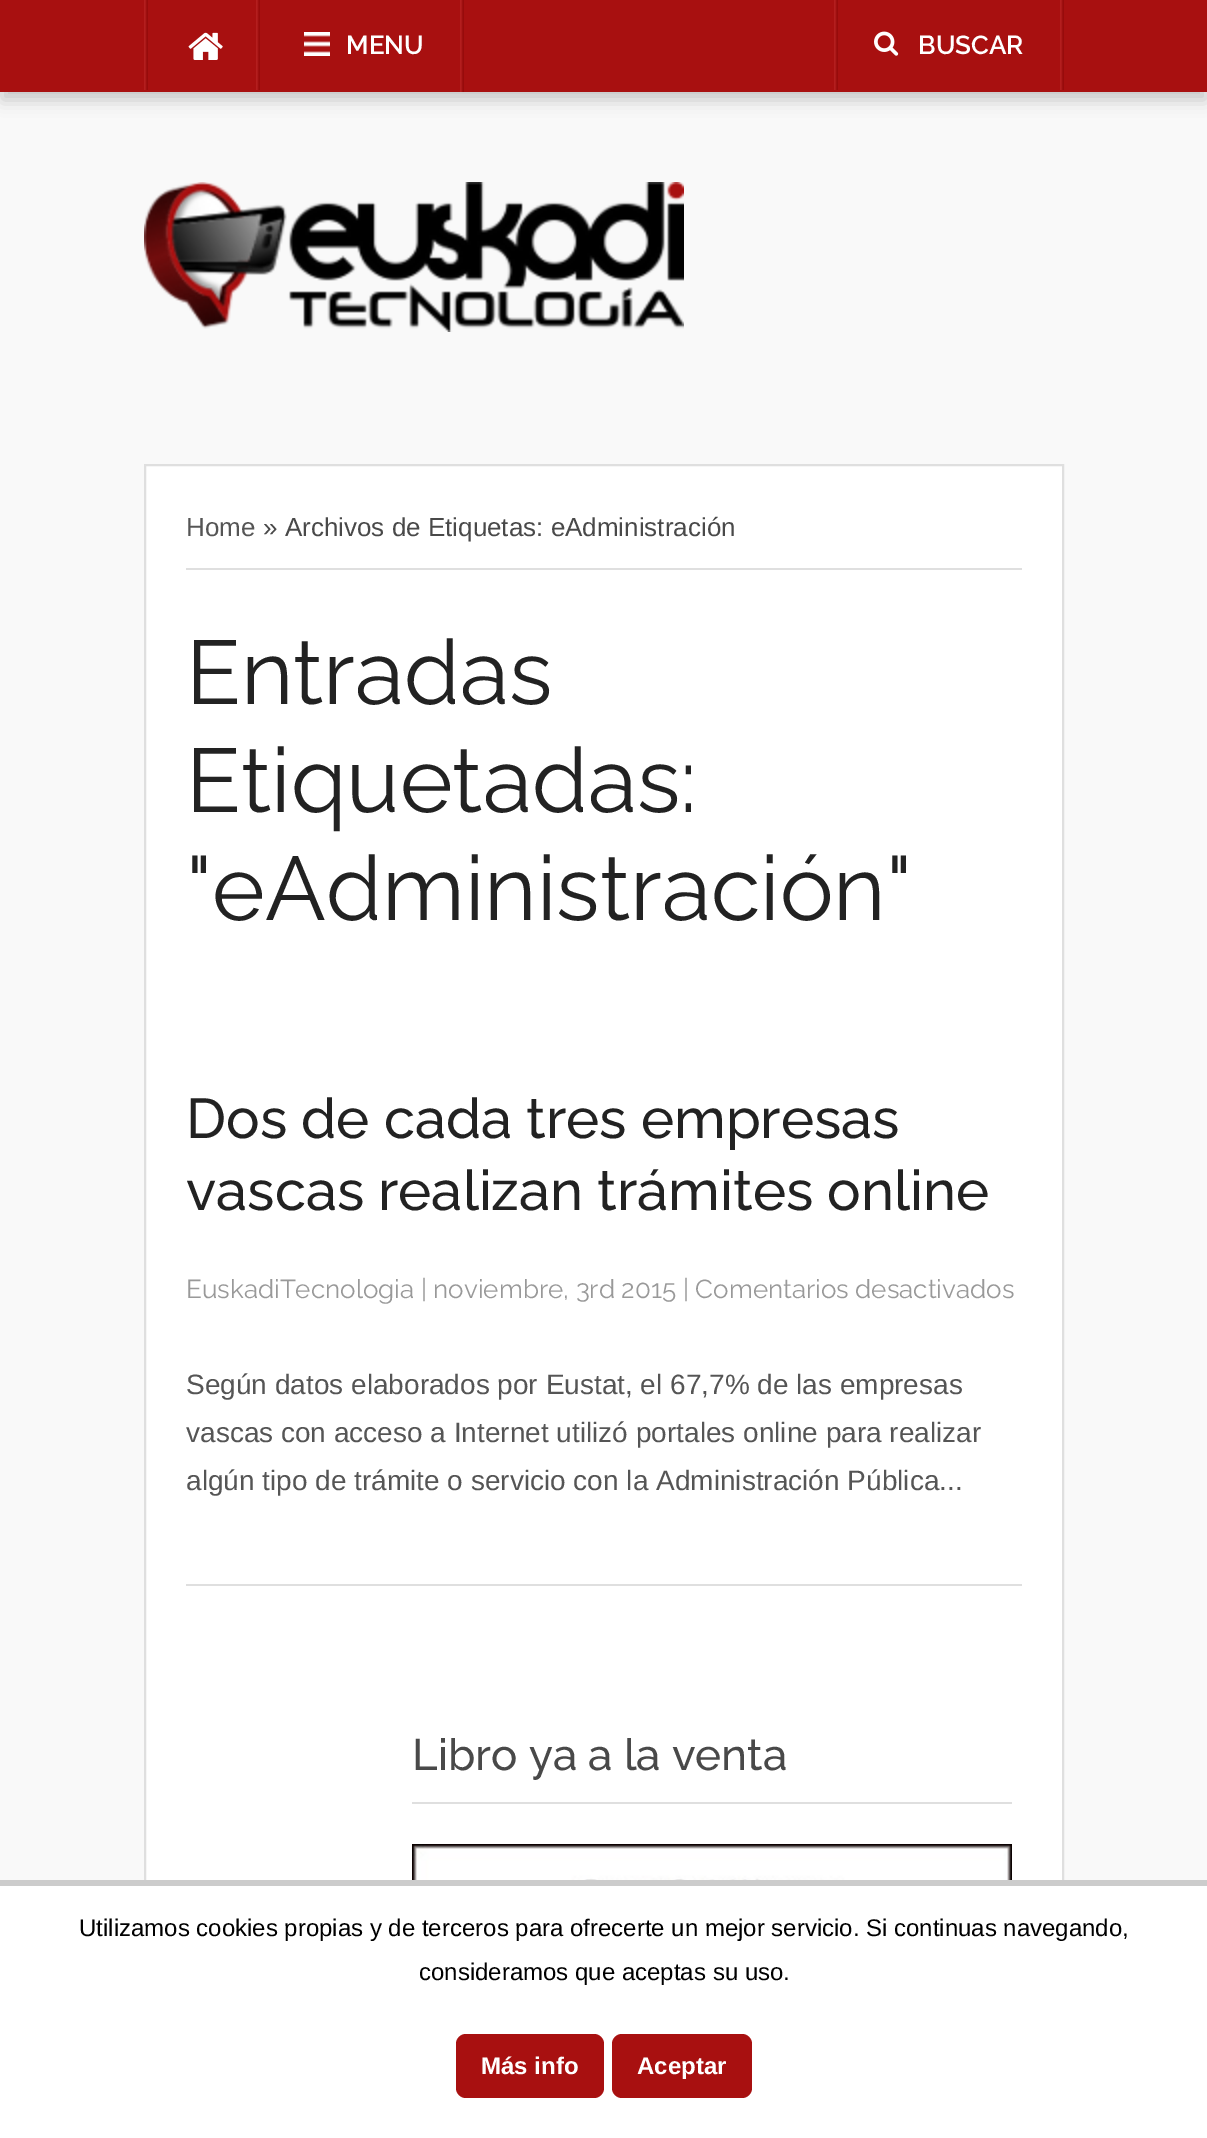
%!PS-Adobe-3.0
%%BoundingBox: 0 0 1207 2138
%%LanguageLevel: 3
%%Pages: 1
%%EndComments
%%BeginProlog
/setink { dup -16 bitshift 255 div exch dup -8 bitshift 255 and 255 div exch 255 and 255 div setrgbcolor } def
/usefont { [ exch dup neg 0 0 3 -1 roll 0 0 ] selectfont } def
/setalpha { dup .setfillconstantalpha .setstrokeconstantalpha } def
/rrect { 5 dict begin { /r /h /w /y /x } { exch def } forall
  x r add y moveto x w add y 2 copy h add r arct x w add y h add x 1 index r arct
  x y h add x y r arct x y 2 copy exch w add exch r arct closepath end } def
/softshadow { 12 dict begin { /a /b /q /h /w /y /x } { exch def } forall gsave /was 0 def
  9 -2 -9 { dup b mul 4 div /e exch def 1 sub .425 mul 2.718 exch exp 1 add a .99 .min exch div /now exch def
    1 1 now sub 1 was sub div sub setalpha /was now def
    w h .min e 2 mul add 0 gt { x e sub y e sub w e 2 mul add h e 2 mul add
      q e add b .6 mul add w h .min 2 div e add .min 0 .max rrect fill } if } for grestore end } def
/drawimage { 5 dict begin { /h /w /y /x /name } { exch def } forall
  gsave x y translate w h scale
  w h 8 [w 0 0 h 0 0] name (r) file false 3 colorimage grestore end } def
%%EndProlog
%%BeginSetup
<< /PageSize [1207 2138] /PageUsesTransparency true >> setpagedevice
%%EndSetup
%%Page: 1 1
0 .pushpdf14devicefilter
0 2138 translate 1 -1 scale
4 setmiterlimit
16#F9F9F9 setink
0 0 1207 2138 rectfill
16#000000 setink
2 12 1204 88 0 8 0.2 softshadow
16#A81010 setink
0 0 1207 92 rectfill
(img1.raw) 144 0 4 90 drawimage
(img2.raw) 188 32 35 28 drawimage
(img1.raw) 256 0 4 90 drawimage
(img3.raw) 460 0 4 92 drawimage
(img4.raw) 304 32 26 24 drawimage
/Raleway-SemiBold 26 usefont
16#FFFFFF setink
346 54 moveto (MENU) show
(img1.raw) 1060 0 4 90 drawimage
(img1.raw) 834 0 4 90 drawimage
(img5.raw) 874 31 25 25 drawimage
918 54 moveto (BUSCAR) show
(img6.raw) 144 182 540 150 drawimage
146 466 916 1414 rectfill
16#DFDFDF setink
2 setlinewidth
145 465 918 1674 rectstroke
186 568 836 2 rectfill
/LiberationSans-Regular 26 usefont
16#555555 setink
186 536 moveto (Home) show
16#494949 setink
263 536 moveto (» Archivos de Etiquetas: eAdministración) show
/Raleway-Regular 90 usefont
16#222222 setink
[
    [(Entradas) 186 704]
    [(Etiquetadas:) 186 812]
    [("eAdministración") 186 920]
] { aload pop moveto show } forall
16#DFDFDF setink
186 1584 836 2 rectfill
/Raleway-Medium 56 usefont
16#222222 setink
186 1138 moveto (Dos de cada tres empresas) show
186 1210 moveto (vascas realizan trámites online) show
/Raleway-Regular 26 usefont
16#999999 setink
186 1298 moveto (EuskadiTecnologia | noviembre, 3rd 2015 | Comentarios desactivados) show
/LiberationSans-Regular 28 usefont
16#555555 setink
[
    [(Según datos elaborados por Eustat, el 67,7% de las empresas) 186 1394]
    [(vascas con acceso a Internet utilizó portales online para realizar) 186 1442]
    [(algún tipo de trámite o servicio con la Administración Pública...) 186 1490]
] { aload pop moveto show } forall
16#DFDFDF setink
412 1802 600 2 rectfill
/Raleway-Medium 44 usefont
16#494949 setink
412 1770 moveto (Libro ya a la venta) show
(img7.raw) 412 1844 600 36 drawimage
16#FFFFFF setink
0 1886 1207 252 rectfill
16#CCCCCC setink
0 1880 1207 6 rectfill
/LiberationSans-Regular 24 usefont
16#000000 setink
79 1936 moveto (Utilizamos cookies propias y de terceros para ofrecerte un mejor servicio. Si continuas navegando,) show
419 1980 moveto (consideramos que aceptas su uso.) show
16#A81010 setink
456 2034 148 64 10 rrect fill
/LiberationSans-Bold 24 usefont
16#FFFFFF setink
481 2074 moveto (Más info) show
16#A81010 setink
612 2034 140 64 10 rrect fill
16#FFFFFF setink
637 2074 moveto (Aceptar) show
.poppdf14devicefilter showpage
%%EOF
